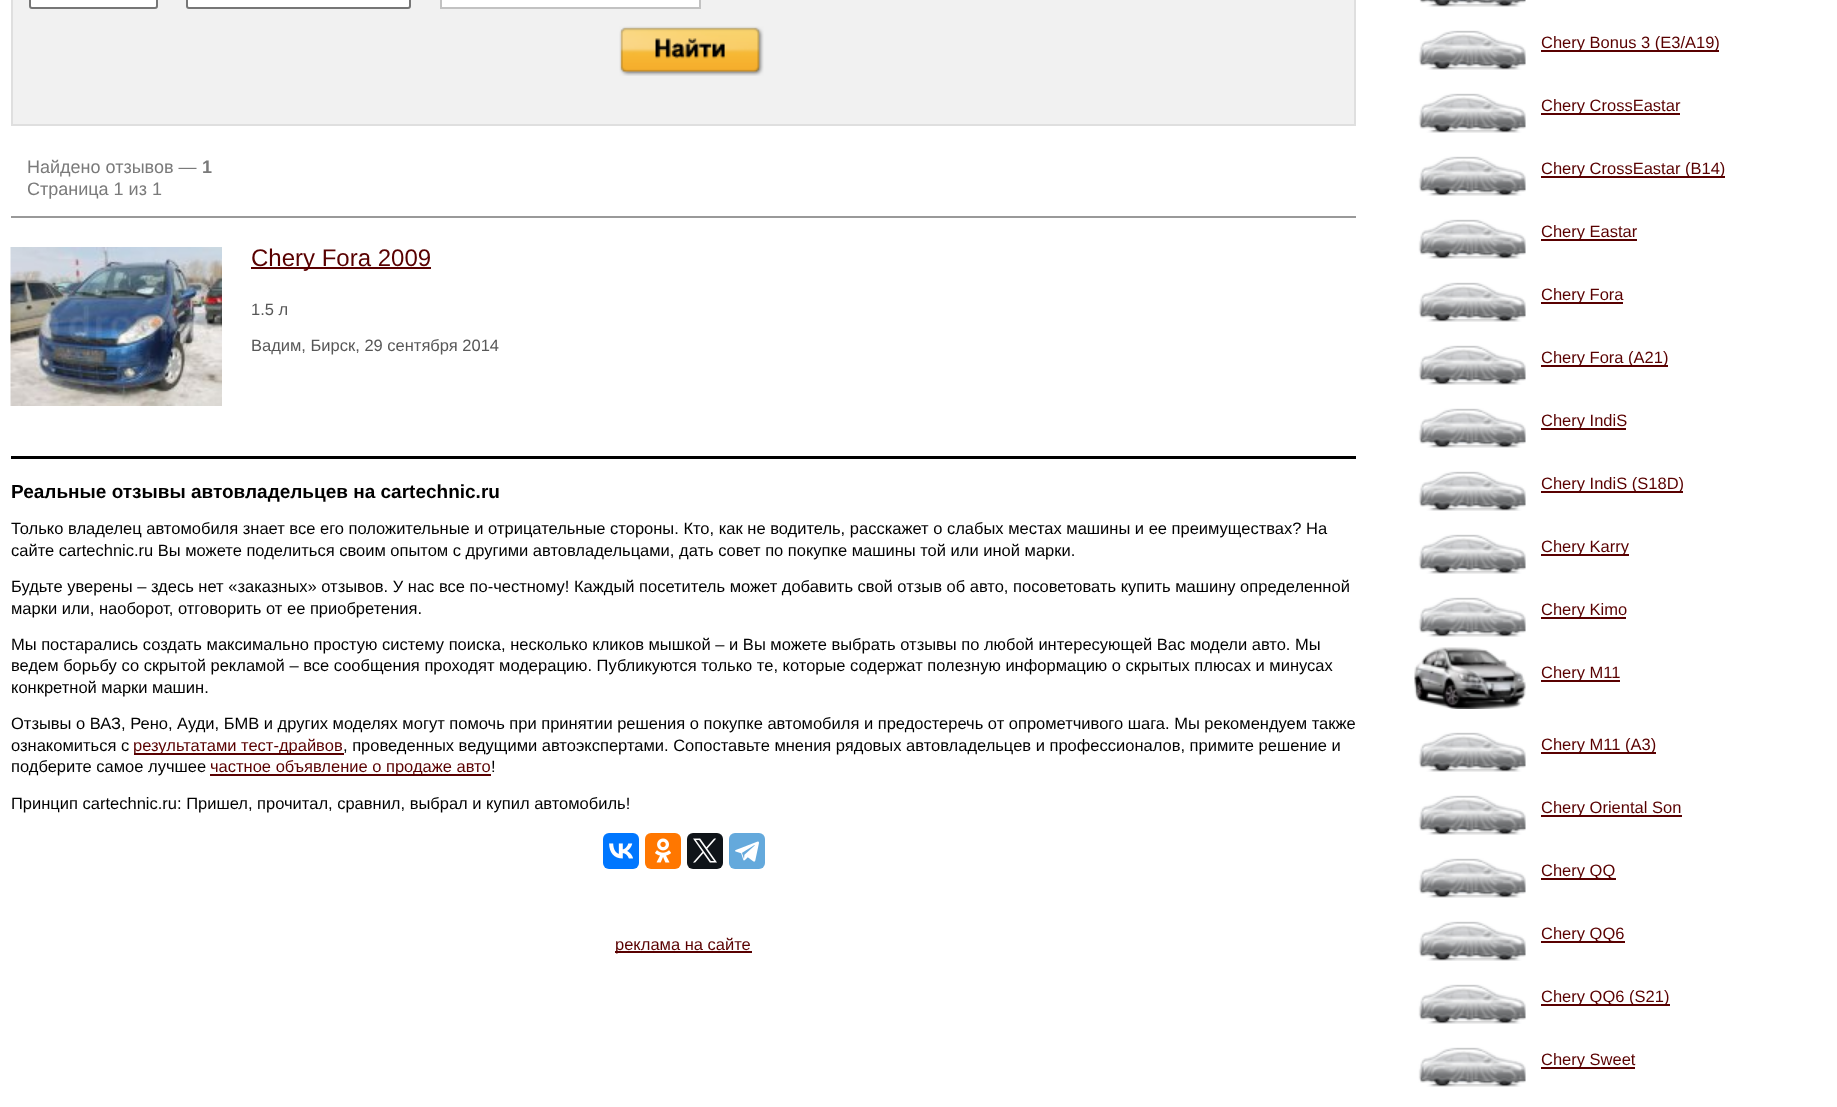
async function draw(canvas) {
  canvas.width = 1837;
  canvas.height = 1107;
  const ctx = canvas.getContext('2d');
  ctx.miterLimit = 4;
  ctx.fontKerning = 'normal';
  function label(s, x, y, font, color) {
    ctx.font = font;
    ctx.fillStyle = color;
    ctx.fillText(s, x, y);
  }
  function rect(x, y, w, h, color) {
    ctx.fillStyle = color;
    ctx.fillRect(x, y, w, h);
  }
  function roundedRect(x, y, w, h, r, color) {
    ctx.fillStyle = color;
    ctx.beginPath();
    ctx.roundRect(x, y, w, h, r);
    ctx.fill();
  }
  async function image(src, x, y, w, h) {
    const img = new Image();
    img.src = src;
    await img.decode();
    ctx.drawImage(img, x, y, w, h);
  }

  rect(0, 0, 1837, 1107, '#fff');
  ctx.fillStyle = '#f1f1f1';
  ctx.beginPath();
  ctx.rect(12, -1, 1343, 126);
  ctx.fill();
  ctx.strokeStyle = '#dfdfdf';
  ctx.lineWidth = 2;
  ctx.stroke();
  ctx.fillStyle = '#fff';
  ctx.beginPath();
  ctx.roundRect(30, -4, 127, 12, 2);
  ctx.fill();
  ctx.strokeStyle = '#767676';
  ctx.stroke();
  ctx.beginPath();
  ctx.roundRect(187, -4, 223, 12, 2);
  ctx.fill();
  ctx.stroke();
  ctx.beginPath();
  ctx.rect(441, -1, 259, 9);
  ctx.fill();
  ctx.strokeStyle = '#c2c2c2';
  ctx.stroke();
  await image('assets/img1.png', 619, 26, 145, 50);
  rect(11, 216, 1345, 2, '#999');
  label('Найдено отзывов —', 27, 173, '18px Liberation Sans', '#7a7a7a');
  label('1', 202, 173, 'bold 18px Liberation Sans', '#7a7a7a');
  label('Страница 1 из 1', 27, 195, '18px Liberation Sans', '#7a7a7a');
  rect(11, 456, 1345, 3, '#000');
  await image('assets/img2.png', 10, 247, 212, 159);
  rect(251, 267, 180, 2, '#590000');
  label('Chery Fora 2009', 251, 266, '24px Liberation Sans', '#590000');
  label('1.5 л', 251, 315, '16.5px Liberation Sans', '#575757');
  label('Вадим, Бирск, 29 сентября 2014', 251, 351, '16.5px Liberation Sans', '#575757');
  label('Реальные отзывы автовладельцев на cartechnic.ru', 11, 498, 'bold 19px Liberation Sans', '#000');
  label('Только владелец автомобиля знает все его положительные и отрицательные стороны. Кто, как не водитель, расскажет о слабых местах машины и ее преимуществах? На', 11, 534, '16.5px Liberation Sans', '#000');
  label('сайте cartechnic.ru Вы можете поделиться своим опытом с другими автовладельцами, дать совет по покупке машины той или иной марки.', 11, 556, '16.5px Liberation Sans', '#000');
  label('Будьте уверены – здесь нет «заказных» отзывов. У нас все по-честному! Каждый посетитель может добавить свой отзыв об авто, посоветовать купить машину определенной', 11, 592, '16.5px Liberation Sans', '#000');
  label('марки или, наоборот, отговорить от ее приобретения.', 11, 614, '16.5px Liberation Sans', '#000');
  label('Мы постарались создать максимально простую систему поиска, несколько кликов мышкой – и Вы можете выбрать отзывы по любой интересующей Вас модели авто. Мы', 11, 650, '16.5px Liberation Sans', '#000');
  label('ведем борьбу со скрытой рекламой – все сообщения проходят модерацию. Публикуются только те, которые содержат полезную информацию о скрытых плюсах и минусах', 11, 671, '16.5px Liberation Sans', '#000');
  label('конкретной марки машин.', 11, 693, '16.5px Liberation Sans', '#000');
  label('Отзывы о ВАЗ, Рено, Ауди, БМВ и других моделях могут помочь при принятии решения о покупке автомобиля и предостеречь от опрометчивого шага. Мы рекомендуем также', 11, 729, '16.5px Liberation Sans', '#000');
  label('ознакомиться с', 11, 751, '16.5px Liberation Sans', '#000');
  rect(134, 753, 210, 2, '#590000');
  label('результатами тест-драйвов', 133, 751, '16.5px Liberation Sans', '#590000');
  label(', проведенных ведущими автоэкспертами. Сопоставьте мнения рядовых автовладельцев и профессионалов, примите решение и', 343, 751, '16.5px Liberation Sans', '#000');
  label('подберите самое лучшее', 11, 772, '16.5px Liberation Sans', '#000');
  rect(210, 774, 281, 2, '#590000');
  label('частное объявление о продаже авто', 210, 772, '16.5px Liberation Sans', '#590000');
  label('!', 491, 772, '16.5px Liberation Sans', '#000');
  label('Принцип cartechnic.ru: Пришел, прочитал, сравнил, выбрал и купил автомобиль!', 11, 809, '16.5px Liberation Sans', '#000');
  roundedRect(603, 833, 36, 36, 6, '#07f');
  await image('assets/img3.png', 609, 843, 24, 16);
  roundedRect(645, 833, 36, 36, 6, '#f70');
  await image('assets/img4.png', 655, 838, 16, 25);
  roundedRect(687, 833, 36, 36, 6, '#0f1419');
  await image('assets/img5.png', 693, 838, 24, 25);
  roundedRect(729, 833, 36, 36, 6, '#64a9dc');
  await image('assets/img6.png', 735, 841, 24, 21);
  rect(615, 951, 137, 2, '#590000');
  label('реклама на сайте', 615, 950, '16.5px Liberation Sans', '#590000');
  await image('assets/img7.png', 1419, 0, 107, 7);
  await image('assets/img8.png', 1418, 30, 108, 40);
  rect(1541, 50, 178, 2, '#590000');
  label('Chery Bonus 3 (E3/A19)', 1541, 48, '16.5px Liberation Sans', '#590000');
  await image('assets/img8.png', 1418, 93, 108, 40);
  rect(1541, 113, 139, 2, '#590000');
  label('Chery CrossEastar', 1541, 111, '16.5px Liberation Sans', '#590000');
  await image('assets/img8.png', 1418, 156, 108, 40);
  rect(1541, 176, 184, 2, '#590000');
  label('Chery CrossEastar (B14)', 1541, 174, '16.5px Liberation Sans', '#590000');
  await image('assets/img8.png', 1418, 219, 108, 40);
  rect(1541, 239, 96, 2, '#590000');
  label('Chery Eastar', 1541, 237, '16.5px Liberation Sans', '#590000');
  await image('assets/img8.png', 1418, 282, 108, 40);
  rect(1541, 302, 82, 2, '#590000');
  label('Chery Fora', 1541, 300, '16.5px Liberation Sans', '#590000');
  await image('assets/img8.png', 1418, 345, 108, 40);
  rect(1541, 365, 127, 2, '#590000');
  label('Chery Fora (A21)', 1541, 363, '16.5px Liberation Sans', '#590000');
  await image('assets/img8.png', 1418, 408, 108, 40);
  rect(1541, 428, 85, 2, '#590000');
  label('Chery IndiS', 1541, 426, '16.5px Liberation Sans', '#590000');
  await image('assets/img8.png', 1418, 471, 108, 40);
  rect(1541, 491, 142, 2, '#590000');
  label('Chery IndiS (S18D)', 1541, 489, '16.5px Liberation Sans', '#590000');
  await image('assets/img8.png', 1418, 534, 108, 40);
  rect(1541, 554, 88, 2, '#590000');
  label('Chery Karry', 1541, 552, '16.5px Liberation Sans', '#590000');
  await image('assets/img8.png', 1418, 597, 108, 40);
  rect(1541, 617, 85, 2, '#590000');
  label('Chery Kimo', 1541, 615, '16.5px Liberation Sans', '#590000');
  await image('assets/img9.png', 1414, 647, 112, 62);
  rect(1541, 680, 79, 2, '#590000');
  label('Chery M11', 1541, 678, '16.5px Liberation Sans', '#590000');
  await image('assets/img8.png', 1418, 732, 108, 40);
  rect(1541, 752, 115, 2, '#590000');
  label('Chery M11 (A3)', 1541, 750, '16.5px Liberation Sans', '#590000');
  await image('assets/img8.png', 1418, 795, 108, 40);
  rect(1541, 815, 141, 2, '#590000');
  label('Chery Oriental Son', 1541, 813, '16.5px Liberation Sans', '#590000');
  await image('assets/img8.png', 1418, 858, 108, 40);
  rect(1541, 878, 75, 2, '#590000');
  label('Chery QQ', 1541, 876, '16.5px Liberation Sans', '#590000');
  await image('assets/img8.png', 1418, 921, 108, 40);
  rect(1541, 941, 84, 2, '#590000');
  label('Chery QQ6', 1541, 939, '16.5px Liberation Sans', '#590000');
  await image('assets/img8.png', 1418, 984, 108, 40);
  rect(1541, 1004, 129, 2, '#590000');
  label('Chery QQ6 (S21)', 1541, 1002, '16.5px Liberation Sans', '#590000');
  await image('assets/img8.png', 1418, 1047, 108, 40);
  rect(1541, 1067, 94, 2, '#590000');
  label('Chery Sweet', 1541, 1065, '16.5px Liberation Sans', '#590000');
}

draw(document.querySelector('canvas'));
